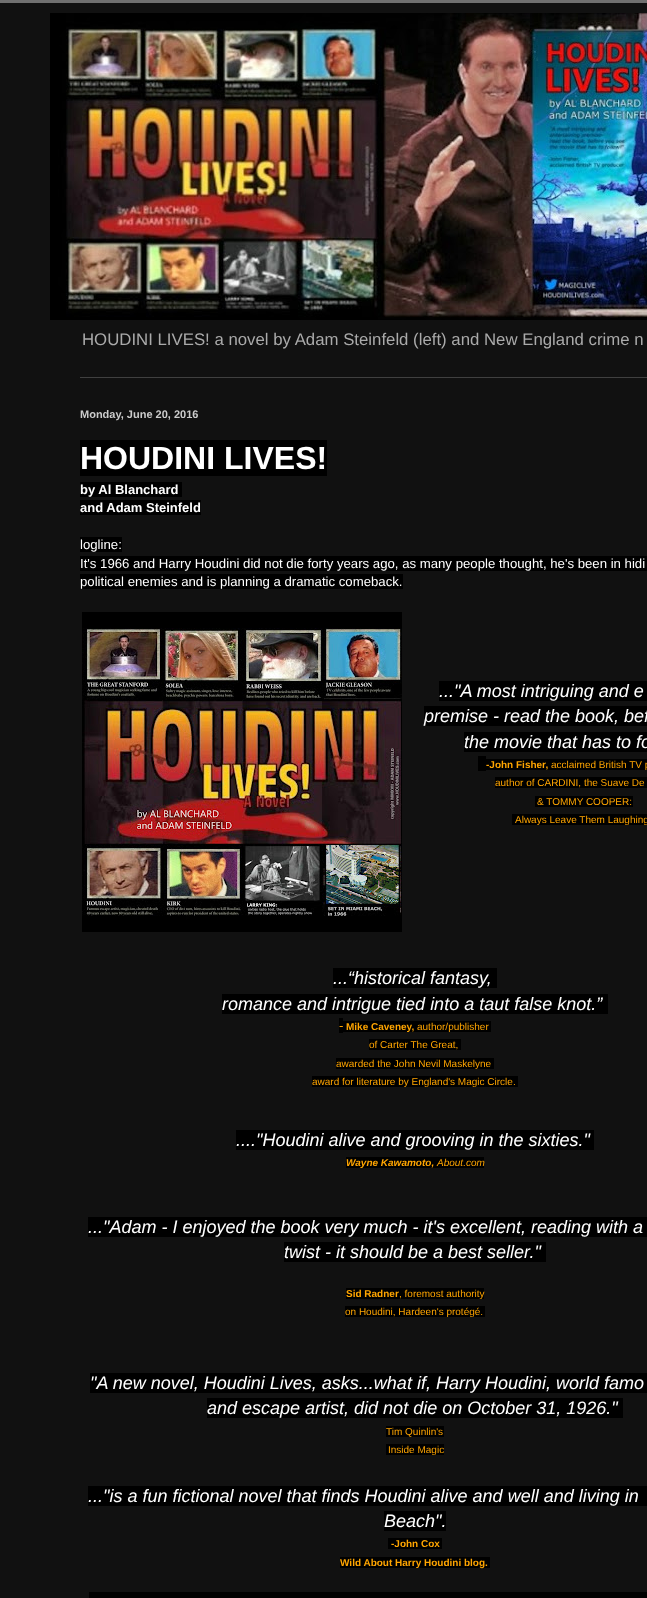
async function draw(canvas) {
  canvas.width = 647;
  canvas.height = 1598;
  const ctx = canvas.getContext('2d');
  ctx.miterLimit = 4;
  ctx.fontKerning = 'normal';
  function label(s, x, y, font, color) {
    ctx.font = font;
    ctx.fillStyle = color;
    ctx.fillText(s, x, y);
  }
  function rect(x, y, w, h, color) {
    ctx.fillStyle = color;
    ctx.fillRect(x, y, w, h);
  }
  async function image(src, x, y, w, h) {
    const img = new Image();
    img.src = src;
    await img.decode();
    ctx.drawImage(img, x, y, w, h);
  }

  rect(0, 0, 647, 1598, '#111');
  rect(0, 0, 647, 3, '#707070');
  await image('assets/img1.png', 50, 13, 597, 307);
  label('HOUDINI LIVES! a novel by Adam Steinfeld (left) and New England crime n', 82, 345, '16.8px Liberation Sans', '#aaa');
  rect(80, 377, 567, 1, '#404040');
  label('Monday, June 20, 2016', 80, 418, 'bold 11px Liberation Sans', '#ccc');
  rect(80, 440, 247, 36, '#000');
  label('HOUDINI LIVES!', 80, 469, 'bold 32px Liberation Sans', '#fff');
  rect(80, 482, 102, 15, '#000');
  label('by Al Blanchard', 80, 494, 'bold 13px Liberation Sans', '#fff');
  rect(80, 500, 121, 15, '#000');
  label('and Adam Steinfeld', 80, 512, 'bold 13px Liberation Sans', '#fff');
  rect(80, 537, 42, 15, '#000');
  label('logline:', 80, 549, '13.2px Liberation Sans', '#fff');
  rect(80, 556, 567, 15, '#000');
  label('It\'s 1966 and Harry Houdini did not die forty years ago, as many people thought, he\'s been in hidi', 80, 568, '13.2px Liberation Sans', '#fff');
  rect(80, 574, 323, 15, '#000');
  label('political enemies and is planning a dramatic comeback.', 80, 586, '13.2px Liberation Sans', '#fff');
  await image('assets/img2.png', 82, 612, 320, 320);
  rect(439, 681, 208, 20, '#000');
  label('..."A most intriguing and e', 439, 697, 'italic 18px Liberation Sans', '#fff');
  rect(424, 706, 223, 20, '#000');
  label('premise - read the book, bef', 424, 722, 'italic 18px Liberation Sans', '#fff');
  rect(464, 732, 183, 20, '#000');
  label('the movie that has to fo', 464, 748, 'italic 18px Liberation Sans', '#fff');
  rect(486, 759, 161, 11, '#000');
  label('-John Fisher,', 486, 768, 'bold 10px Liberation Sans', '#ffa500');
  rect(478, 756, 8, 15, '#000');
  label('acclaimed British TV p', 551, 768, '10px Liberation Sans', '#ffa500');
  rect(495, 777, 152, 11, '#000');
  label('author of CARDINI, the Suave De', 495, 786, '10px Liberation Sans', '#ffa500');
  rect(535, 796, 98, 11, '#000');
  label('& TOMMY COOPER:', 537, 805, '10px Liberation Sans', '#ffa500');
  rect(512, 814, 135, 11, '#000');
  label('Always Leave Them Laughing', 515, 823, '10px Liberation Sans', '#ffa500');
  rect(333, 968, 164, 20, '#000');
  label('...“historical fantasy,', 333, 984, 'italic 18px Liberation Sans', '#fff');
  rect(222, 994, 386, 20, '#000');
  label('romance and intrigue tied into a taut false knot.”', 222, 1010, 'italic 18px Liberation Sans', '#fff');
  rect(339, 1018, 4, 15, '#000');
  label('-', 339, 1030, '13.2px Liberation Sans', '#ffa500');
  rect(343, 1021, 148, 11, '#000');
  label('Mike Caveney,', 346, 1030, 'bold 10px Liberation Sans', '#ffa500');
  label('author/publisher', 417, 1030, '10px Liberation Sans', '#ffa500');
  rect(369, 1039, 92, 11, '#000');
  label('of Carter The Great,', 369, 1048, '10px Liberation Sans', '#ffa500');
  rect(336, 1058, 158, 11, '#000');
  label('awarded the John Nevil Maskelyne', 336, 1067, '10px Liberation Sans', '#ffa500');
  rect(312, 1076, 206, 11, '#000');
  label('award for literature by England\'s Magic Circle.', 312, 1085, '10px Liberation Sans', '#ffa500');
  rect(236, 1130, 358, 20, '#000');
  label('...."Houdini alive and grooving in the sixties."', 236, 1146, 'italic 18px Liberation Sans', '#fff');
  rect(346, 1157, 138, 11, '#000');
  label('Wayne Kawamoto,', 346, 1166, 'italic bold 10px Liberation Sans', '#ffa500');
  label('About.com', 437, 1166, 'italic 10px Liberation Sans', '#ffa500');
  rect(88, 1217, 559, 20, '#000');
  label('..."Adam - I enjoyed the book very much - it\'s excellent, reading with a', 88, 1233, 'italic 18px Liberation Sans', '#fff');
  rect(284, 1242, 262, 20, '#000');
  label('twist - it should be a best seller."', 284, 1258, 'italic 18px Liberation Sans', '#fff');
  rect(346, 1288, 138, 11, '#000');
  label('Sid Radner', 346, 1297, 'bold 10px Liberation Sans', '#ffa500');
  label(', foremost authority', 399, 1297, '10px Liberation Sans', '#ffa500');
  rect(345, 1306, 140, 11, '#000');
  label('on Houdini, Hardeen\'s protégé.', 345, 1315, '10px Liberation Sans', '#ffa500');
  rect(90, 1373, 557, 20, '#000');
  label('"A new novel, Houdini Lives, asks...what if, Harry Houdini, world famo', 90, 1389, 'italic 18px Liberation Sans', '#fff');
  rect(207, 1398, 416, 20, '#000');
  label('and escape artist, did not die on October 31, 1926."', 207, 1414, 'italic 18px Liberation Sans', '#fff');
  rect(386, 1426, 58, 11, '#000');
  label('Tim Quinlin\'s', 386, 1435, '10px Liberation Sans', '#ffa500');
  rect(386, 1444, 58, 11, '#000');
  label('Inside Magic', 388, 1453, '10px Liberation Sans', '#ffa500');
  rect(88, 1486, 559, 20, '#000');
  label('..."is a fun fictional novel that finds Houdini alive and well and living in', 88, 1502, 'italic 18px Liberation Sans', '#fff');
  rect(384, 1511, 62, 20, '#000');
  label('Beach".', 384, 1527, 'italic 18px Liberation Sans', '#fff');
  rect(388, 1538, 54, 11, '#000');
  label('-John Cox', 391, 1547, 'bold 10px Liberation Sans', '#ffa500');
  rect(340, 1557, 150, 11, '#000');
  label('Wild About Harry Houdini blog.', 340, 1566, 'bold 10px Liberation Sans', '#ffa500');
  rect(89, 1592, 558, 6, '#000');
}

draw(document.querySelector('canvas'));
